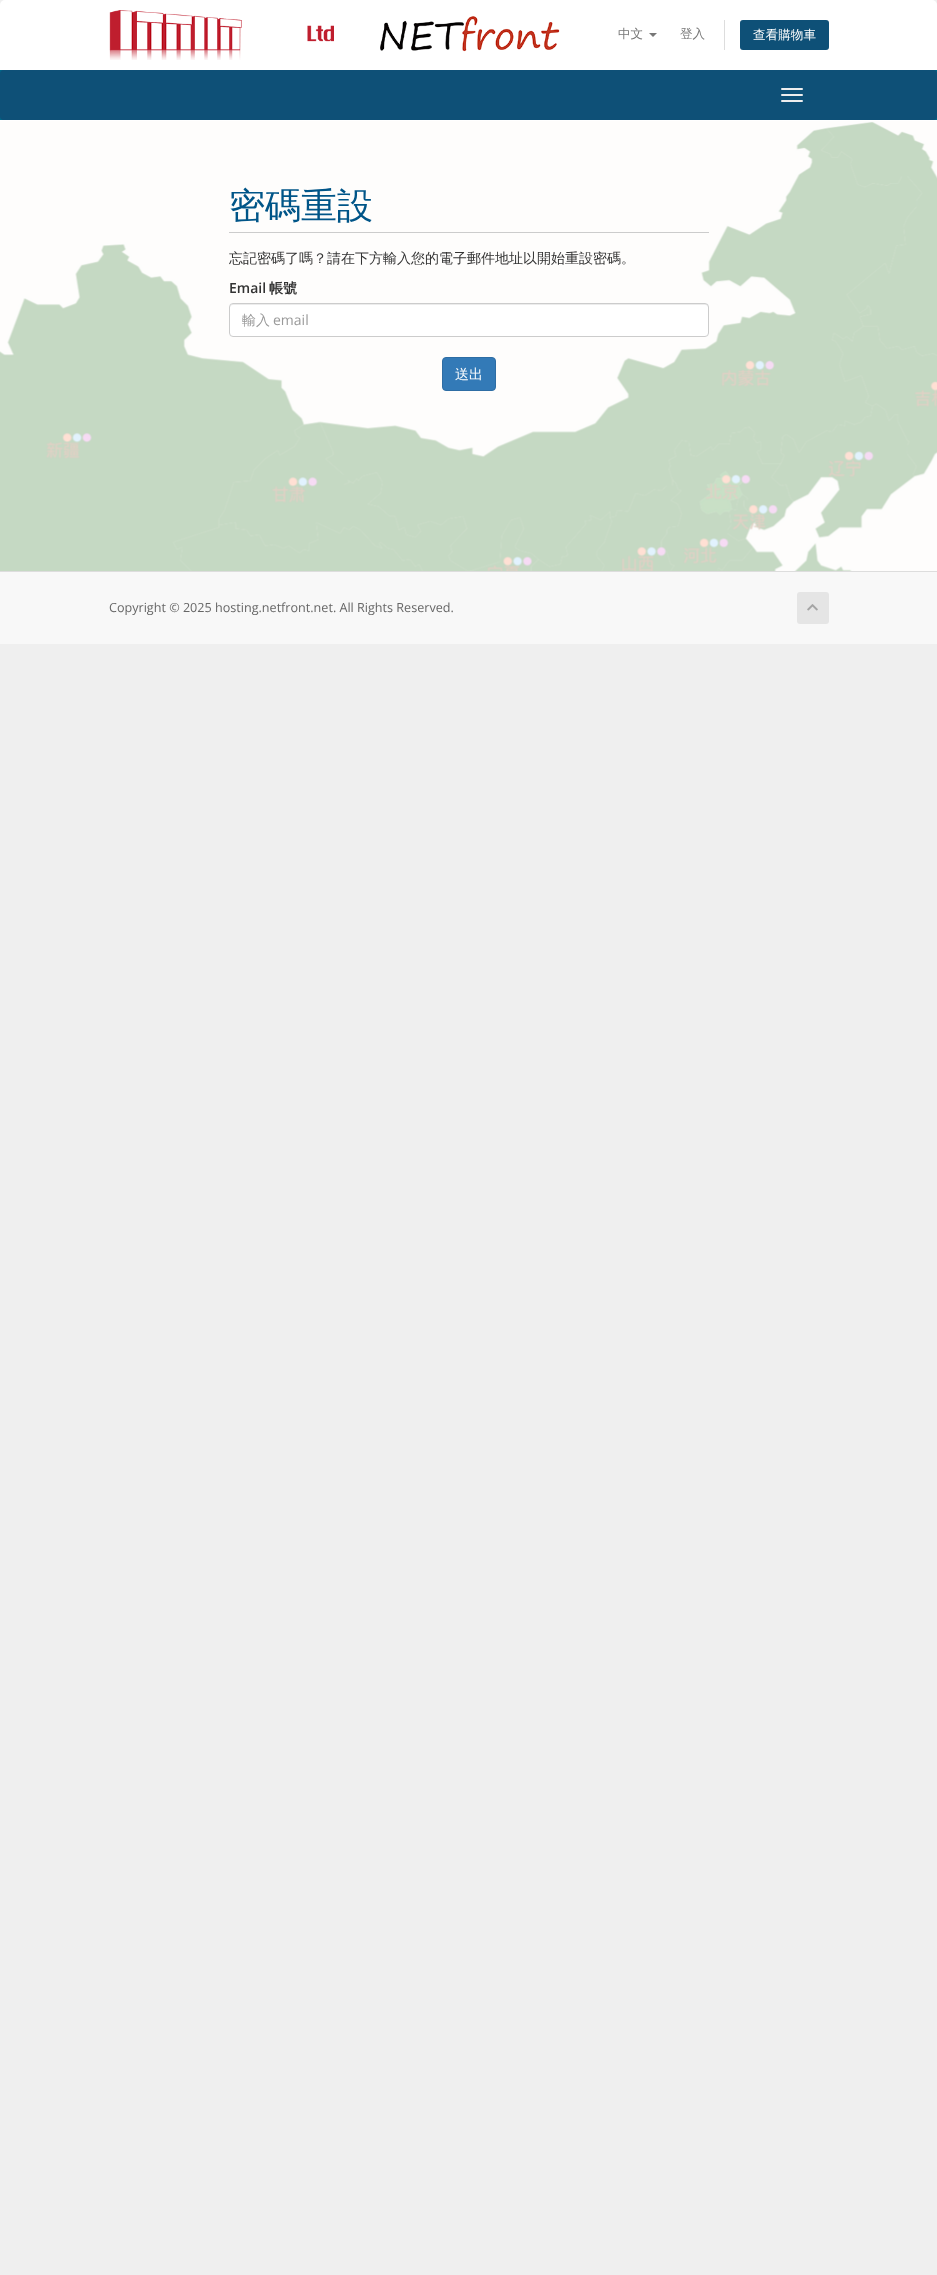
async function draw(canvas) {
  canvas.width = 937;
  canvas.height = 2275;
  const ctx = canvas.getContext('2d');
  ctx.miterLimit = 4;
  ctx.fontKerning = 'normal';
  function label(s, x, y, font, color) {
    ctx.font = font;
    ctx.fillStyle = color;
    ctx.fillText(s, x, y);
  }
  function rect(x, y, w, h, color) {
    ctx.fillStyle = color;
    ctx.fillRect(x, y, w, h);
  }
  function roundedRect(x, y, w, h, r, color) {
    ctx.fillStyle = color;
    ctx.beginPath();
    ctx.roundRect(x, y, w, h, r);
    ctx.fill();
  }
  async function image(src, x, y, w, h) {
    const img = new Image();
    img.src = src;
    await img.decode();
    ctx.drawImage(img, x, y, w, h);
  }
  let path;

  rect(0, 0, 937, 2275, '#efefef');
  ctx.fillStyle = '#fff';
  ctx.beginPath();
  ctx.roundRect(0, 0, 937, 70, [5, 5, 0, 0]);
  ctx.fill();
  await image('assets/img1.png', 109, 10, 451, 50);
  label('中文', 618, 38, '500 12.6px WenQuanYi Zen Hei', '#777');
  path = new Path2D('M649 33H657L653 37Z');
  ctx.fill(path);
  label('登入', 680, 38, '500 12.6px WenQuanYi Zen Hei', '#777');
  rect(724, 20, 1, 30, '#ddd');
  roundedRect(740, 20, 89, 30, 3, '#0e5077');
  label('查看購物車', 753, 39, '500 12.6px WenQuanYi Zen Hei', '#fff');
  rect(0, 70, 937, 50, '#006687');
  roundedRect(0, 70, 937, 50, 4, '#0e5077');
  roundedRect(781, 88, 22, 2, 1, '#eee');
  roundedRect(781, 94, 22, 2, 1, '#eee');
  roundedRect(781, 100, 22, 2, 1, '#eee');
  rect(0, 120, 937, 1, '#fff');
  await image('assets/img2.png', 0, 121, 937, 450);
  rect(229, 232, 480, 1, '#ccc');
  label('密碼重設', 229, 218, '500 36px WenQuanYi Zen Hei', '#058');
  label('忘記密碼了嗎？請在下方輸入您的電子郵件地址以開始重設密碼。', 229, 263, '500 14px WenQuanYi Zen Hei', '#333');
  label('Email', 229, 293, '600 14px Open Sans', '#333');
  label('帳號', 269, 293, 'bold 14px WenQuanYi Zen Hei', '#333');
  roundedRect(229, 303, 480, 34, 4, '#fff');
  ctx.fillStyle = '#ececec';
  path = new Path2D('M233 305H705C707 305 708 306 708 308C708 306 708 304 706 304H232L230 306V308C230 306 231 305 233 305Z');
  ctx.fill(path);
  ctx.beginPath();
  ctx.roundRect(229.5, 303.5, 479, 33, 3.5);
  ctx.strokeStyle = '#ccc';
  ctx.stroke();
  ctx.save();
  ctx.beginPath();
  ctx.rect(242, 310, 454, 20);
  ctx.clip();
  label('輸入', 242, 325, '500 14px WenQuanYi Zen Hei', '#999');
  ctx.restore();
  label('email', 273, 325, '14px Open Sans', '#999');
  ctx.fillStyle = '#337ab7';
  ctx.beginPath();
  ctx.roundRect(442.5, 357.5, 53, 33, 3.5);
  ctx.fill();
  ctx.strokeStyle = '#2e6da4';
  ctx.stroke();
  label('送出', 455, 379, '500 14px WenQuanYi Zen Hei', '#fff');
  rect(0, 572, 937, 72, '#f8f8f8');
  rect(0, 571, 937, 1, '#ddd');
  label('Copyright © 2025 hosting.netfront.net. All Rights Reserved.', 109, 612, '12.6px Open Sans', '#666');
  roundedRect(797, 592, 32, 32, 3, '#e5e5e5');
  await image('assets/img3.png', 807, 604, 11, 7);
}

draw(document.querySelector('canvas'));
